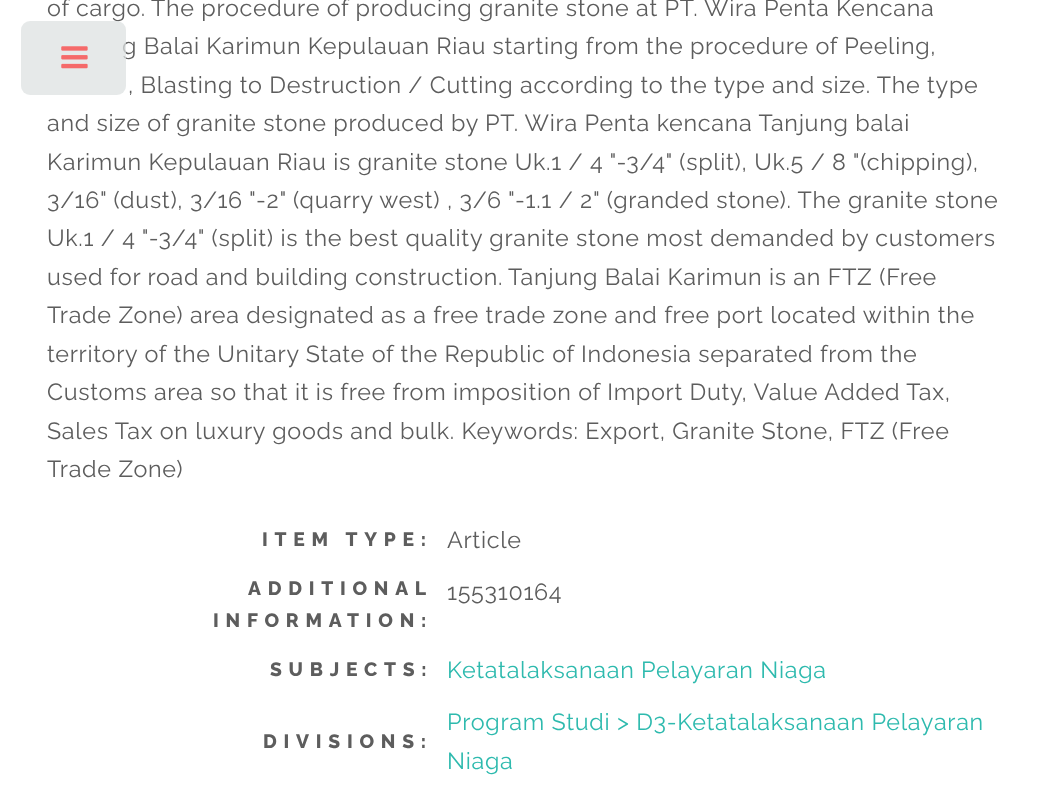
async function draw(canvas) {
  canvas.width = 1051;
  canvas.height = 796;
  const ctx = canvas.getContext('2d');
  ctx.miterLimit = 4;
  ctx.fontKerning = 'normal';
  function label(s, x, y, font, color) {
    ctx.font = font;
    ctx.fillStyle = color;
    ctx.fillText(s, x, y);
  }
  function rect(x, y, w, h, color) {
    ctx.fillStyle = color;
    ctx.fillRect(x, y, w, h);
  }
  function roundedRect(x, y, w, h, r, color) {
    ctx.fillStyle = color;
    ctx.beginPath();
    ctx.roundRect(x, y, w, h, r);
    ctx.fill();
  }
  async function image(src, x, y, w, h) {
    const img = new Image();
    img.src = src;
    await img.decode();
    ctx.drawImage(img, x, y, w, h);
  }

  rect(0, 0, 1051, 796, '#fff');
  ctx.letterSpacing = '0.7px';
  label('of cargo.', 47, 16, '23.35px Raleway', '#5d5d5d');
  label('The procedure of producing granite stone at PT. Wira Penta Kencana', 151, 16, '23.35px Raleway', '#5d5d5d');
  label('g Balai Karimun Kepulauan Riau starting from the procedure of Peeling,', 122, 54, '23.35px Raleway', '#5d5d5d');
  label(', Blasting to Destruction / Cutting according to the type and size. The type', 128, 93, '23.35px Raleway', '#5d5d5d');
  label('and size of granite stone produced by PT. Wira Penta kencana Tanjung balai', 47, 131, '23.35px Raleway', '#5d5d5d');
  label('Karimun Kepulauan Riau is granite stone Uk.1 / 4 "-3/4" (split), Uk.5 / 8 "(chipping),', 47, 170, '23.35px Raleway', '#5d5d5d');
  label('3/16" (dust), 3/16 "-2" (quarry west) , 3/6 "-1.1 / 2" (granded stone). The granite stone', 47, 208, '23.35px Raleway', '#5d5d5d');
  label('Uk.1 / 4 "-3/4" (split) is the best quality granite stone most demanded by customers', 47, 246, '23.35px Raleway', '#5d5d5d');
  label('used for road and building construction.', 47, 285, '23.35px Raleway', '#5d5d5d');
  label('Tanjung Balai Karimun is an FTZ (Free', 508, 285, '23.35px Raleway', '#5d5d5d');
  label('Trade Zone) area designated as a free trade zone and free port located within the', 47, 323, '23.35px Raleway', '#5d5d5d');
  label('territory of the Unitary State of the Republic of Indonesia separated from the', 47, 362, '23.35px Raleway', '#5d5d5d');
  label('Customs area so that it is free from imposition of Import Duty, Value Added Tax,', 47, 400, '23.35px Raleway', '#5d5d5d');
  label('Sales Tax on luxury goods and bulk. Keywords: Export, Granite Stone, FTZ (Free', 47, 439, '23.35px Raleway', '#5d5d5d');
  label('Trade Zone)', 47, 477, '23.35px Raleway', '#5d5d5d');
  ctx.letterSpacing = '6.75px';
  label('ITEM TYPE:', 262, 546, '800 19.25px Raleway', '#5d5d5d');
  ctx.letterSpacing = '0.7px';
  label('Article', 447, 548, '23.35px Raleway', '#5d5d5d');
  ctx.letterSpacing = '6.75px';
  label('ADDITIONAL', 248, 595, '800 19.25px Raleway', '#5d5d5d');
  label('INFORMATION:', 213, 627, '800 19.25px Raleway', '#5d5d5d');
  ctx.letterSpacing = '0.7px';
  label('155310164', 447, 600, '23.35px Raleway', '#5d5d5d');
  ctx.letterSpacing = '6.75px';
  label('SUBJECTS:', 270, 676, '800 19.25px Raleway', '#5d5d5d');
  ctx.letterSpacing = '0.7px';
  label('Ketatalaksanaan Pelayaran Niaga', 447, 678, '23.35px Raleway', '#2ebaae');
  ctx.letterSpacing = '6.75px';
  label('DIVISIONS:', 263, 748, '800 19.25px Raleway', '#5d5d5d');
  ctx.letterSpacing = '0.7px';
  label('Program Studi > D3-Ketatalaksanaan Pelayaran', 447, 730, '23.35px Raleway', '#2ebaae');
  label('Niaga', 447, 769, '23.35px Raleway', '#2ebaae');
  roundedRect(21, 21, 105, 74, 9, '#dee1e2bf');
  await image('assets/img1.png', 61, 46, 27, 23);
}

draw(document.querySelector('canvas'));
